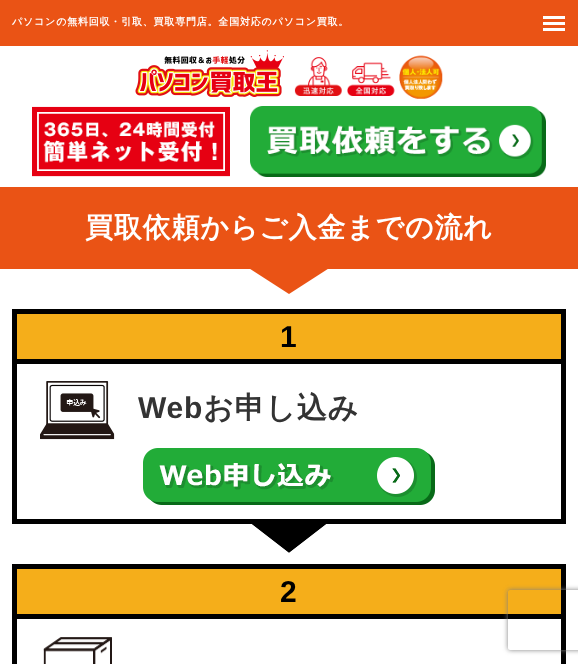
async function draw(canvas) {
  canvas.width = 578;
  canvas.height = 664;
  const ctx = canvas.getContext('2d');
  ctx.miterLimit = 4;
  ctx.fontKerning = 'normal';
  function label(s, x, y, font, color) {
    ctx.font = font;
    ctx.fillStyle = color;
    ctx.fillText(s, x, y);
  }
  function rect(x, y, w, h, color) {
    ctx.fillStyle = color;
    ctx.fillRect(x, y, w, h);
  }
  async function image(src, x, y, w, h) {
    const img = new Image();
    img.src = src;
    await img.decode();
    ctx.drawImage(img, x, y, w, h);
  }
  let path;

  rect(0, 0, 578, 664, '#fff');
  rect(0, 0, 578, 46, '#ea5315');
  ctx.letterSpacing = '0.8px';
  label('パソコンの無料回収・引取、買取専門店。全国対応のパソコン買取。', 12, 25, 'bold 10px WenQuanYi Zen Hei', '#fff');
  await image('assets/img1.png', 135, 50, 149, 47);
  await image('assets/img2.png', 294, 55, 149, 44);
  await image('assets/img3.png', 32, 106, 198, 71);
  await image('assets/img4.png', 250, 106, 296, 71);
  rect(0, 187, 578, 82, '#ea5315');
  label('買取依頼からご入金までの流れ', 85, 237, 'bold 28px WenQuanYi Zen Hei', '#fff');
  await image('assets/img5.png', 250, 269, 78, 25);
  ctx.strokeStyle = '#000';
  ctx.lineWidth = 5;
  ctx.strokeRect(14.5, 311.5, 549, 210);
  rect(17, 314, 544, 45, '#f5ae1a');
  rect(17, 359, 544, 5, '#000');
  label('1', 280, 347, 'bold 30px Liberation Sans', '#000');
  await image('assets/img6.png', 40, 381, 75, 59);
  label('Web', 138, 418, 'bold 30px Liberation Sans', '#333');
  label('お申し込み', 203, 418, 'bold 30px WenQuanYi Zen Hei', '#333');
  await image('assets/img7.png', 143, 448, 292, 57);
  await image('assets/img8.png', 252, 524, 74, 29);
  ctx.strokeRect(14.5, 566.5, 549, 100);
  rect(17, 569, 544, 45, '#f5ae1a');
  rect(17, 614, 544, 5, '#000');
  label('2', 280, 602, 'bold 30px Liberation Sans', '#000');
  await image('assets/img9.png', 43, 637, 69, 27);
  rect(543, 16, 22, 3, '#fff');
  rect(543, 22, 22, 3, '#fff');
  rect(543, 28, 22, 3, '#fff');
  ctx.save();
  path = new Path2D('M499 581H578V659H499ZM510 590H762C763 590 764 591 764 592V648C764 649 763 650 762 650H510C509 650 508 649 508 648V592C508 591 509 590 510 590Z');
  ctx.clip(path, 'evenodd');
  ctx.fillStyle = '#808080';
  ctx.filter = 'blur(2.5px)';
  ctx.beginPath();
  ctx.roundRect(508, 590, 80, 60, 2);
  ctx.fill();
  ctx.filter = 'none';
  ctx.restore();
}

draw(document.querySelector('canvas'));
